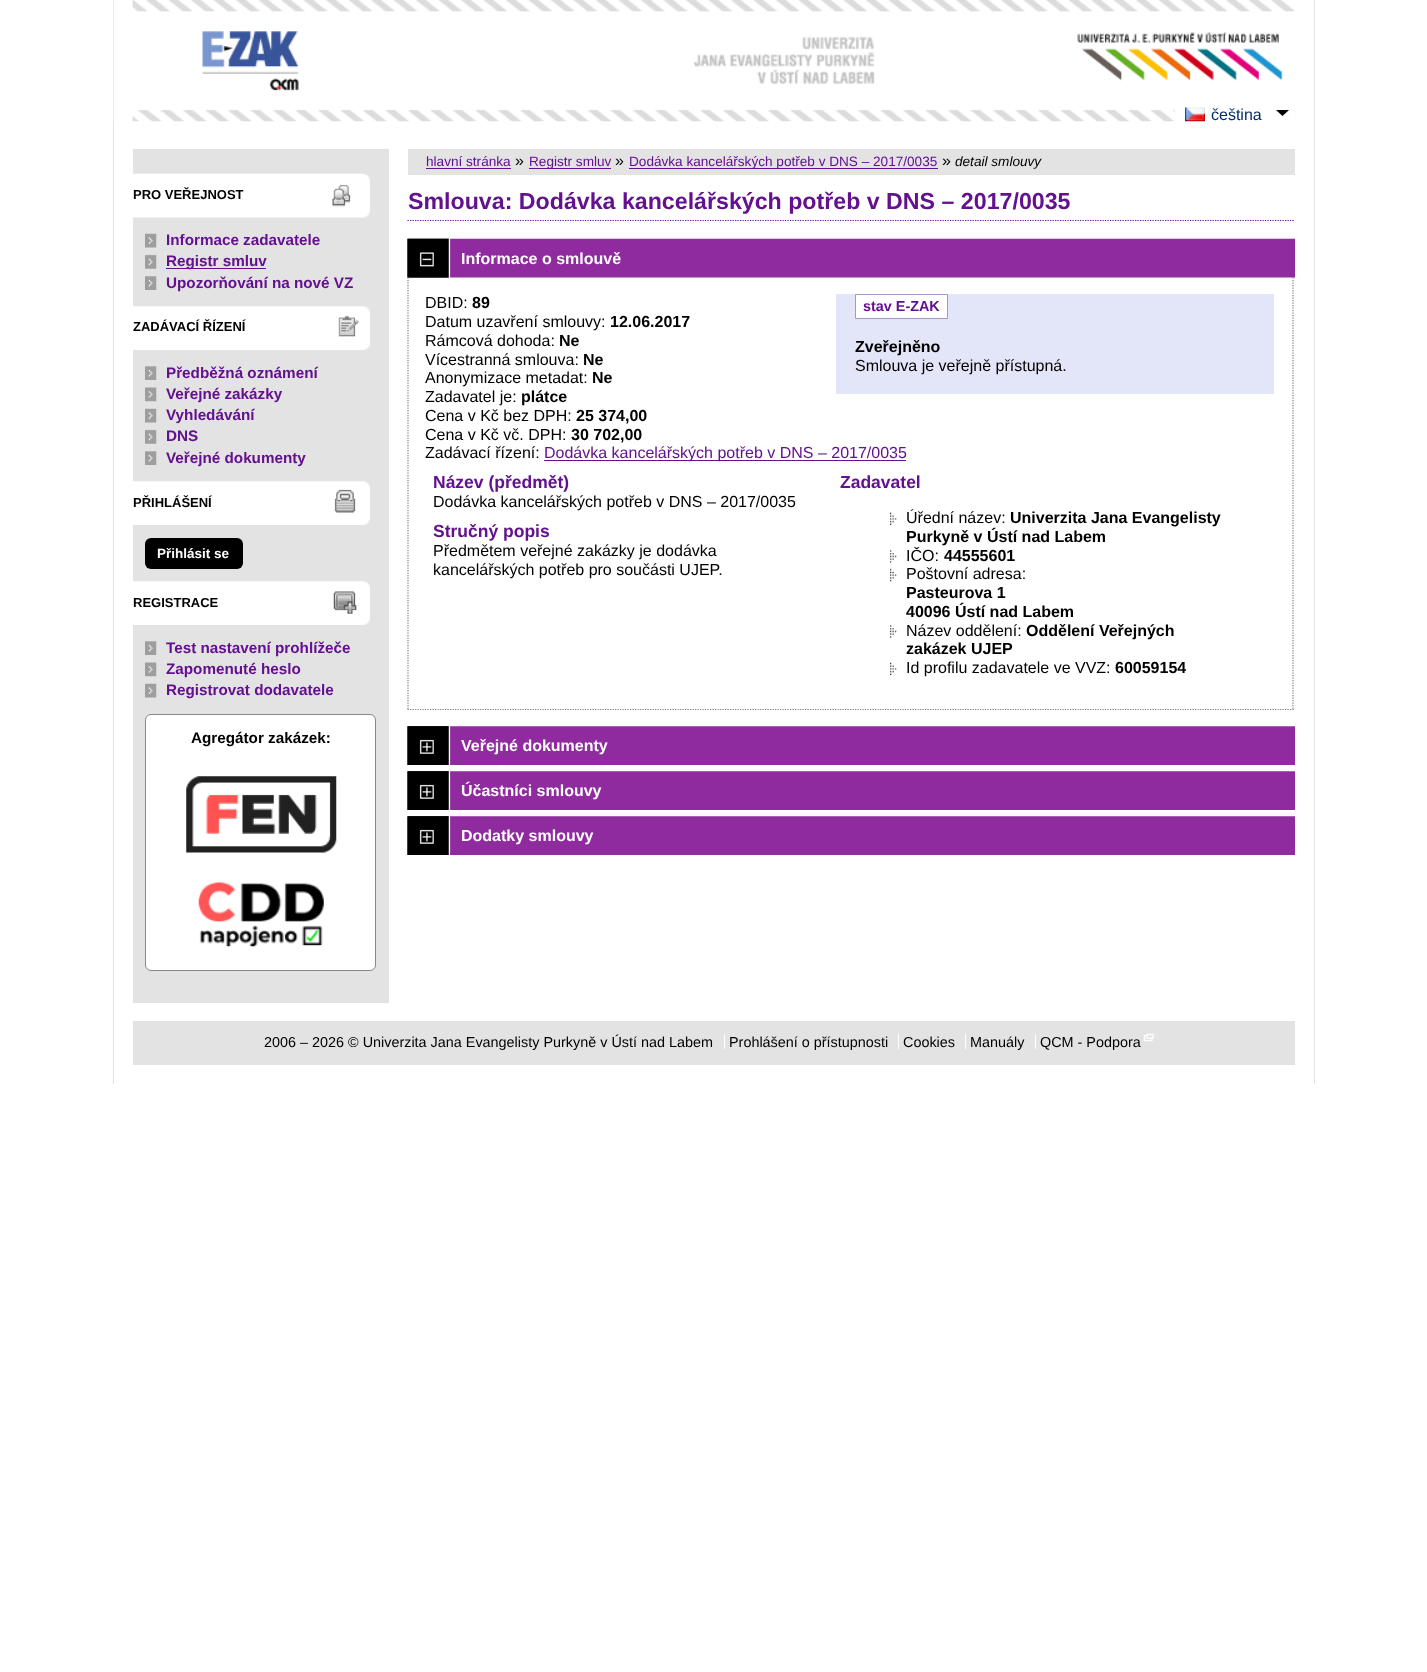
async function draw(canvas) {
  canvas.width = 1427;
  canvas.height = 1672;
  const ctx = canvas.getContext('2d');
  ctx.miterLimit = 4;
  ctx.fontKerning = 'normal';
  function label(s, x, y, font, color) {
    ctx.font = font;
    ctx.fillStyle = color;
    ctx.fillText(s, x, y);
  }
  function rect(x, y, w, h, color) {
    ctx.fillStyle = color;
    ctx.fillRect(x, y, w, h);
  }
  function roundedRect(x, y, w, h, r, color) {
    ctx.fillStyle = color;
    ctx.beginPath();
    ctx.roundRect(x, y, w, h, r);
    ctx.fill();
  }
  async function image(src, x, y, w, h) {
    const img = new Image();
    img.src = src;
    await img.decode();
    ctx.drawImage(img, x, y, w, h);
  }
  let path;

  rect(0, 0, 1427, 1672, '#fff');
  rect(1314, 0, 1, 1084, '#e3e3e3');
  rect(113, 0, 1, 1084, '#e3e3e3');
  await image('assets/img1.png', 113, 0, 1183, 122);
  await image('assets/img2.png', 202, 31, 97, 60);
  await image('assets/img3.png', 1039, 26, 244, 55);
  rect(1175, 109, 120, 13, '#fff');
  await image('assets/img4.png', 1185, 107, 20, 15);
  label('čeština', 1211, 120, '16px Liberation Sans', '#012d6b');
  ctx.fillStyle = '#000';
  path = new Path2D('M1276 110H1289L1282.5 116Z');
  ctx.fill(path);
  rect(133, 149, 256, 854, '#e3e3e3');
  await image('assets/img5.png', 133, 173, 237, 45);
  label('PRO VEŘEJNOST', 133, 199, 'bold 13px Liberation Sans', '#000');
  await image('assets/img6.png', 145, 233, 12, 15);
  label('Informace zadavatele', 166, 245, 'bold 15.25px Liberation Sans', '#64118f');
  await image('assets/img7.png', 145, 254, 12, 15);
  rect(166, 268, 100, 1, '#64118f');
  label('Registr smluv', 166, 266, 'bold 15.25px Liberation Sans', '#64118f');
  await image('assets/img8.png', 145, 276, 12, 14);
  label('Upozorňování na nové VZ', 166, 288, 'bold 15.25px Liberation Sans', '#64118f');
  await image('assets/img9.png', 133, 306, 237, 44);
  label('ZADÁVACÍ ŘÍZENÍ', 133, 331, 'bold 13px Liberation Sans', '#000');
  await image('assets/img8.png', 145, 366, 12, 14);
  label('Předběžná oznámení', 166, 378, 'bold 15.25px Liberation Sans', '#64118f');
  await image('assets/img10.png', 145, 387, 12, 15);
  label('Veřejné zakázky', 166, 399, 'bold 15.25px Liberation Sans', '#64118f');
  await image('assets/img6.png', 145, 408, 12, 15);
  label('Vyhledávání', 166, 420, 'bold 15.25px Liberation Sans', '#64118f');
  await image('assets/img7.png', 145, 429, 12, 15);
  label('DNS', 166, 441, 'bold 15.25px Liberation Sans', '#64118f');
  await image('assets/img8.png', 145, 451, 12, 14);
  label('Veřejné dokumenty', 166, 463, 'bold 15.25px Liberation Sans', '#64118f');
  await image('assets/img11.png', 133, 481, 237, 44);
  label('PŘIHLÁŠENÍ', 133, 507, 'bold 13px Liberation Sans', '#000');
  roundedRect(145, 538, 98, 31, 6, '#000');
  label('Přihlásit se', 157, 558, 'bold 13.5px Liberation Sans', '#fff');
  await image('assets/img12.png', 133, 581, 237, 44);
  label('REGISTRACE', 133, 607, 'bold 13px Liberation Sans', '#000');
  await image('assets/img8.png', 145, 641, 12, 14);
  label('Test nastavení prohlížeče', 166, 653, 'bold 15.25px Liberation Sans', '#64118f');
  await image('assets/img10.png', 145, 662, 12, 15);
  label('Zapomenuté heslo', 166, 674, 'bold 15.25px Liberation Sans', '#64118f');
  await image('assets/img6.png', 145, 683, 12, 15);
  label('Registrovat dodavatele', 166, 695, 'bold 15.25px Liberation Sans', '#64118f');
  ctx.fillStyle = '#fff';
  ctx.beginPath();
  ctx.roundRect(145.5, 714.5, 230, 256, 5.5);
  ctx.fill();
  ctx.strokeStyle = '#888';
  ctx.stroke();
  label('Agregátor zakázek:', 191, 743, 'bold 15.25px Liberation Sans', '#000');
  await image('assets/img13.png', 186, 776, 151, 77);
  await image('assets/img14.png', 198, 882, 126, 65);
  rect(408, 149, 887, 26, '#e3e3e3');
  label('hlavní stránka', 426, 166, '13.6px Liberation Sans', '#64118f');
  rect(426, 168, 85, 1, '#64118f');
  label('»', 515, 166, '16px Liberation Sans', '#000');
  rect(529, 168, 82, 1, '#64118f');
  label('Registr smluv', 529, 166, '13.6px Liberation Sans', '#64118f');
  label('»', 615, 166, '16px Liberation Sans', '#000');
  rect(629, 168, 309, 1, '#64118f');
  label('Dodávka kancelářských potřeb v DNS – 2017/0035', 629, 166, '13.6px Liberation Sans', '#64118f');
  label('»', 942, 166, '16px Liberation Sans', '#000');
  label('detail smlouvy', 955, 166, 'italic 13.6px Liberation Sans', '#000');
  path = new Path2D('M407.5 220.5H1295');
  ctx.strokeStyle = '#64118f';
  ctx.lineWidth = 1.2;
  ctx.setLineDash([1.25, 1.25]);
  ctx.stroke(path);
  label('Smlouva: Dodávka kancelářských potřeb v DNS – 2017/0035', 408, 209, 'bold 23.2px Liberation Sans', '#64118f');
  await image('assets/img15.png', 407, 238, 888, 40);
  await image('assets/img16.png', 407, 238, 43, 40);
  label('Informace o smlouvě', 461, 264, 'bold 16px Liberation Sans', '#fff');
  path = new Path2D('M1293 277.5V710');
  ctx.strokeStyle = '#7f7f7f';
  ctx.stroke(path);
  path = new Path2D('M407.5 709.5H1294');
  ctx.stroke(path);
  path = new Path2D('M408 277.5V710');
  ctx.stroke(path);
  label('DBID:', 425, 308, '16px Liberation Sans', '#000');
  label('89', 472, 308, 'bold 16px Liberation Sans', '#000');
  label('Datum uzavření smlouvy:', 425, 327, '16px Liberation Sans', '#000');
  label('12.06.2017', 610, 327, 'bold 16px Liberation Sans', '#000');
  label('Rámcová dohoda:', 425, 346, '16px Liberation Sans', '#000');
  label('Ne', 559, 346, 'bold 16px Liberation Sans', '#000');
  label('Vícestranná smlouva:', 425, 365, '16px Liberation Sans', '#000');
  label('Ne', 583, 365, 'bold 16px Liberation Sans', '#000');
  label('Anonymizace metadat:', 425, 383, '16px Liberation Sans', '#000');
  label('Ne', 592, 383, 'bold 16px Liberation Sans', '#000');
  label('Zadavatel je:', 425, 402, '16px Liberation Sans', '#000');
  label('plátce', 521, 402, 'bold 16px Liberation Sans', '#000');
  label('Cena v Kč bez DPH:', 425, 421, '16px Liberation Sans', '#000');
  label('25 374,00', 576, 421, 'bold 16px Liberation Sans', '#000');
  label('Cena v Kč vč. DPH:', 425, 440, '16px Liberation Sans', '#000');
  label('30 702,00', 571, 440, 'bold 16px Liberation Sans', '#000');
  label('Zadávací řízení:', 425, 458, '16px Liberation Sans', '#000');
  rect(544, 460, 362, 1, '#64118f');
  label('Dodávka kancelářských potřeb v DNS – 2017/0035', 544, 458, '16px Liberation Sans', '#64118f');
  rect(836, 294, 438, 100, '#e3e5f8');
  ctx.fillStyle = '#fff';
  ctx.beginPath();
  ctx.rect(855.5, 294.5, 92, 24);
  ctx.fill();
  ctx.strokeStyle = '#aa95cb';
  ctx.lineWidth = 1;
  ctx.setLineDash([]);
  ctx.stroke();
  label('stav E-ZAK', 863, 311, 'bold 14.4px Liberation Sans', '#64118f');
  label('Zveřejněno', 855, 352, 'bold 16px Liberation Sans', '#000');
  label('Smlouva je veřejně přístupná.', 855, 371, '16px Liberation Sans', '#000');
  label('Název (předmět)', 433, 488, 'bold 17.5px Liberation Sans', '#64118f');
  label('Dodávka kancelářských potřeb v DNS – 2017/0035', 433, 507, '16px Liberation Sans', '#000');
  label('Stručný popis', 433, 537, 'bold 17.5px Liberation Sans', '#64118f');
  label('Předmětem veřejné zakázky je dodávka', 433, 556, '16px Liberation Sans', '#000');
  label('kancelářských potřeb pro součásti UJEP.', 433, 575, '16px Liberation Sans', '#000');
  label('Zadavatel', 840, 488, 'bold 17.5px Liberation Sans', '#64118f');
  await image('assets/img17.png', 890, 512, 7, 13);
  label('Úřední název:', 906, 523, '16px Liberation Sans', '#000');
  label('Univerzita Jana Evangelisty', 1010, 523, 'bold 16px Liberation Sans', '#000');
  label('Purkyně v Ústí nad Labem', 906, 542, 'bold 16px Liberation Sans', '#000');
  await image('assets/img18.png', 890, 550, 7, 13);
  label('IČO:', 906, 561, '16px Liberation Sans', '#000');
  label('44555601', 944, 561, 'bold 16px Liberation Sans', '#000');
  await image('assets/img19.png', 890, 568, 7, 14);
  label('Poštovní adresa:', 906, 579, '16px Liberation Sans', '#000');
  label('Pasteurova 1', 906, 598, 'bold 16px Liberation Sans', '#000');
  label('40096 Ústí nad Labem', 906, 617, 'bold 16px Liberation Sans', '#000');
  await image('assets/img18.png', 890, 625, 7, 13);
  label('Název oddělení:', 906, 636, '16px Liberation Sans', '#000');
  label('Oddělení Veřejných', 1026, 636, 'bold 16px Liberation Sans', '#000');
  label('zakázek UJEP', 906, 654, 'bold 16px Liberation Sans', '#000');
  await image('assets/img17.png', 890, 662, 7, 13);
  label('Id profilu zadavatele ve VVZ:', 906, 673, '16px Liberation Sans', '#000');
  label('60059154', 1115, 673, 'bold 16px Liberation Sans', '#000');
  await image('assets/img20.png', 407, 726, 888, 39);
  await image('assets/img21.png', 407, 726, 43, 39);
  label('Veřejné dokumenty', 461, 751, 'bold 16px Liberation Sans', '#fff');
  await image('assets/img20.png', 407, 771, 888, 39);
  await image('assets/img21.png', 407, 771, 43, 39);
  label('Účastníci smlouvy', 461, 796, 'bold 16px Liberation Sans', '#fff');
  await image('assets/img20.png', 407, 816, 888, 39);
  await image('assets/img21.png', 407, 816, 43, 39);
  label('Dodatky smlouvy', 461, 841, 'bold 16px Liberation Sans', '#fff');
  rect(133, 1021, 1162, 44, '#e3e3e3');
  label('2006 – 2026 © Univerzita Jana Evangelisty Purkyně v Ústí nad Labem', 264, 1047, '14.4px Liberation Sans', '#000');
  rect(724, 1034, 1, 15, '#fff');
  label('Prohlášení o přístupnosti', 729, 1047, '14.4px Liberation Sans', '#000');
  rect(898, 1034, 1, 15, '#fff');
  label('Cookies', 903, 1047, '14.4px Liberation Sans', '#000');
  rect(965, 1034, 1, 15, '#fff');
  label('Manuály', 970, 1047, '14.4px Liberation Sans', '#000');
  rect(1035, 1034, 1, 15, '#fff');
  label('QCM - Podpora', 1040, 1047, '14.4px Liberation Sans', '#000');
  await image('assets/img22.png', 1143, 1033, 11, 9);
}

draw(document.querySelector('canvas'));
